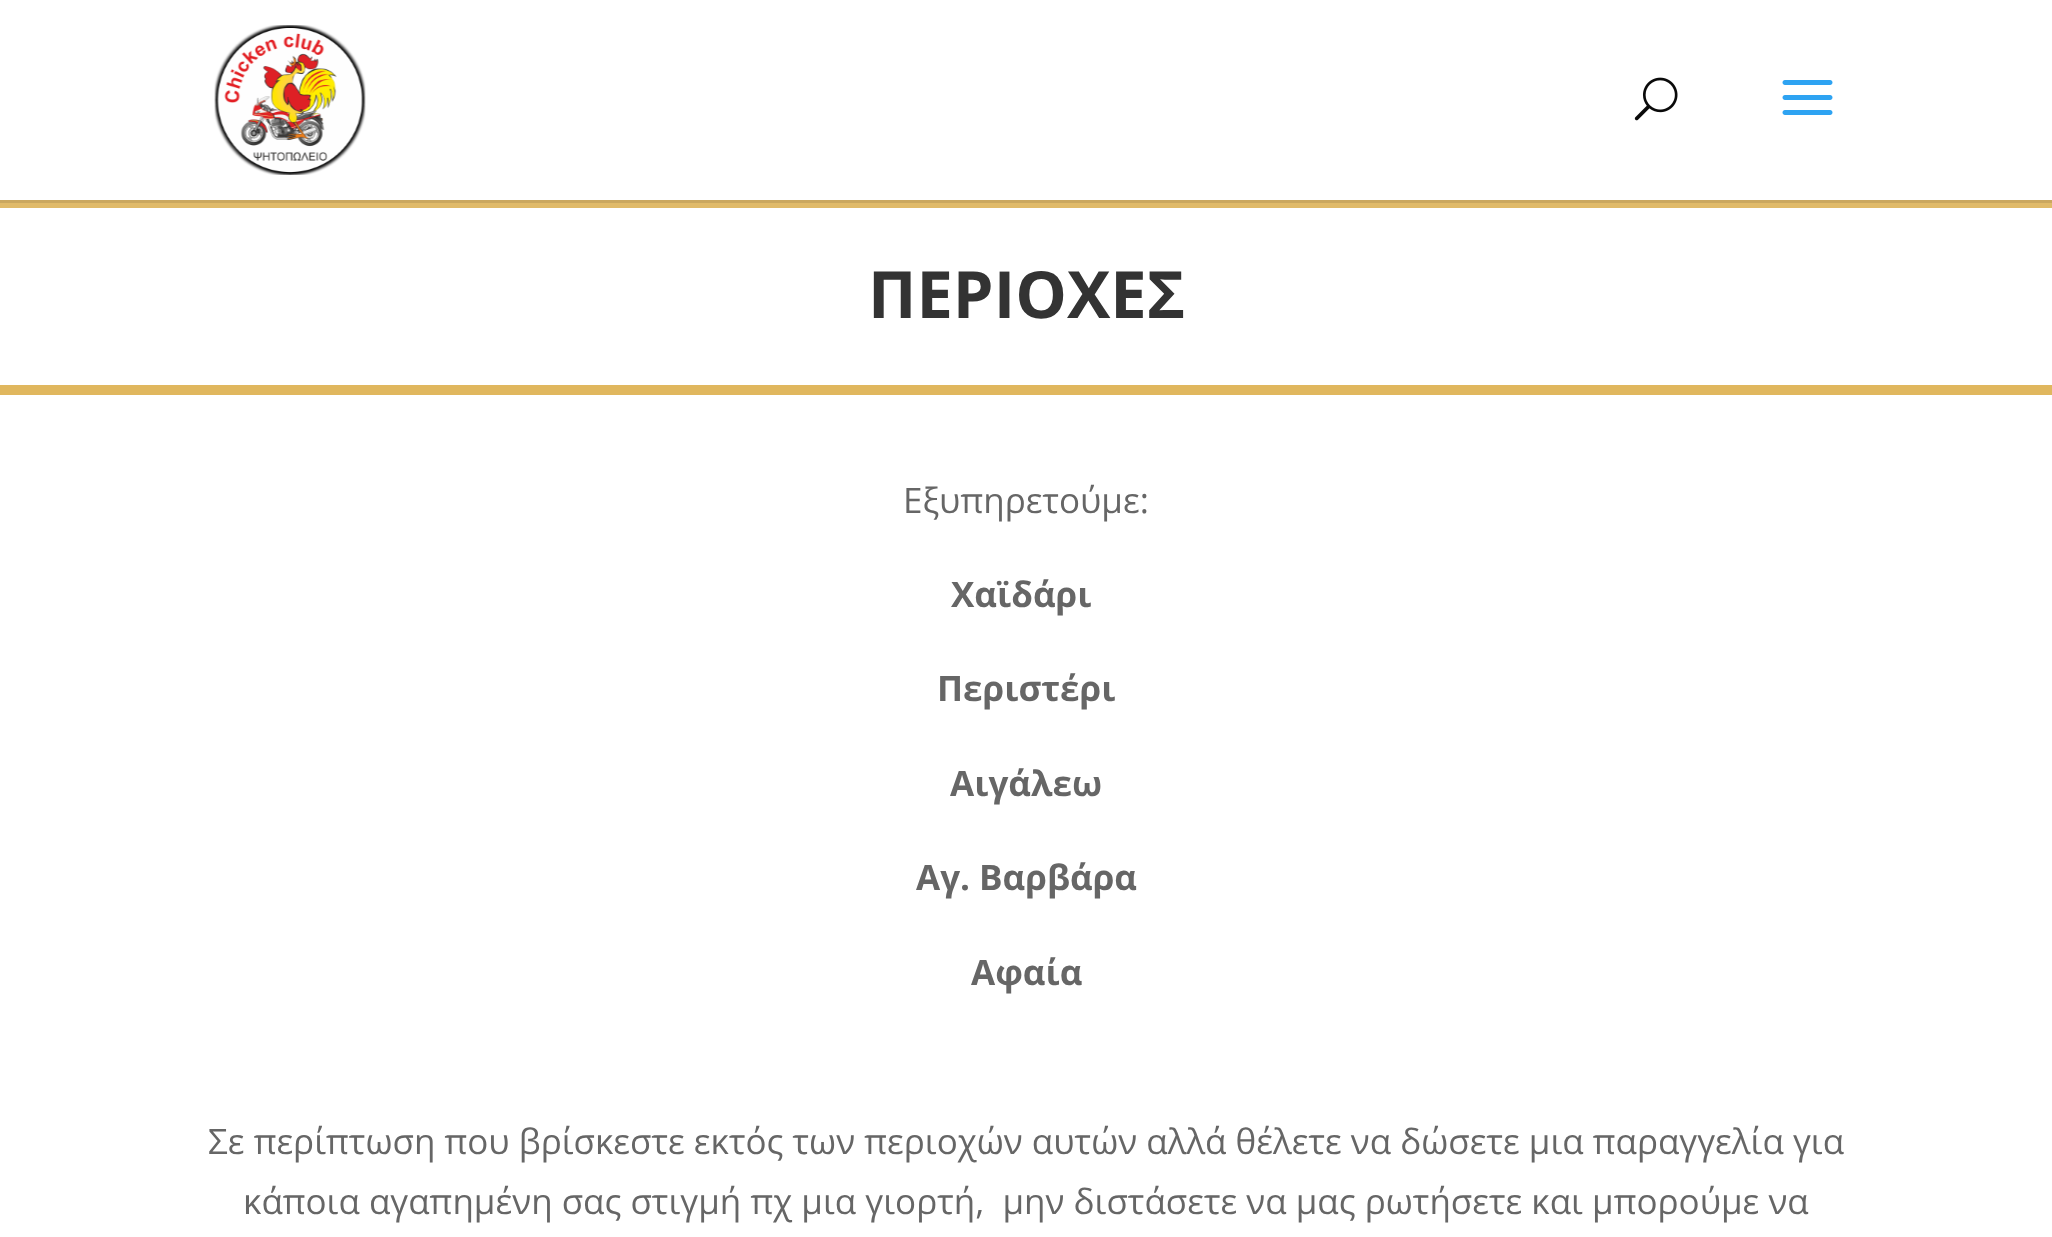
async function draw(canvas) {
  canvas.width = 2052;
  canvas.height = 1237;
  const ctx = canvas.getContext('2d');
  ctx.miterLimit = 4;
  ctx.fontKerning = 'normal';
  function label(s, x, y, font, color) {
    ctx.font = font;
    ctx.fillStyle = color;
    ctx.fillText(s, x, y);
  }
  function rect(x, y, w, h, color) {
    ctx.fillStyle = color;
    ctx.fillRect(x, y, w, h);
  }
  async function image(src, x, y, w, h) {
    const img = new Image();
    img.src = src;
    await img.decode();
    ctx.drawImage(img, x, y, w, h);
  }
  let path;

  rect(0, 0, 2052, 1237, '#fff');
  ctx.fillStyle = '#caa75f';
  path = new Path2D('M0 200V203H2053V3H2052V200Z');
  ctx.fill(path);
  await image('assets/img1.png', 214, 25, 152, 150);
  await image('assets/img2.png', 1634, 77, 44, 44);
  await image('assets/img3.png', 1782, 80, 51, 35);
  rect(0, 203, 2052, 5, '#e0ba69');
  rect(0, 385, 2052, 10, '#e0b75e');
  label('ΠΕΡΙΟΧΕΣ', 868, 318, 'bold 65px Open Sans', '#333');
  label('Εξυπηρετούμε:', 903, 513, '35px Open Sans', '#666');
  label('Χαϊδάρι', 951, 607, 'bold 35px Open Sans', '#666');
  label('Περιστέρι', 937, 701, 'bold 35px Open Sans', '#666');
  label('Αιγάλεω', 950, 796, 'bold 35px Open Sans', '#666');
  label('Αγ. Βαρβάρα', 916, 890, 'bold 35px Open Sans', '#666');
  label('Αφαία', 971, 985, 'bold 35px Open Sans', '#666');
  label('Σε περίπτωση που βρίσκεστε εκτός των περιοχών αυτών αλλά θέλετε να δώσετε μια παραγγελία για', 208, 1154, '35px Open Sans', '#666');
  label('κάποια αγαπημένη σας στιγμή πχ μια γιορτή,  μην διστάσετε να μας ρωτήσετε και μπορούμε να', 243, 1214, '35px Open Sans', '#666');
}

draw(document.querySelector('canvas'));
